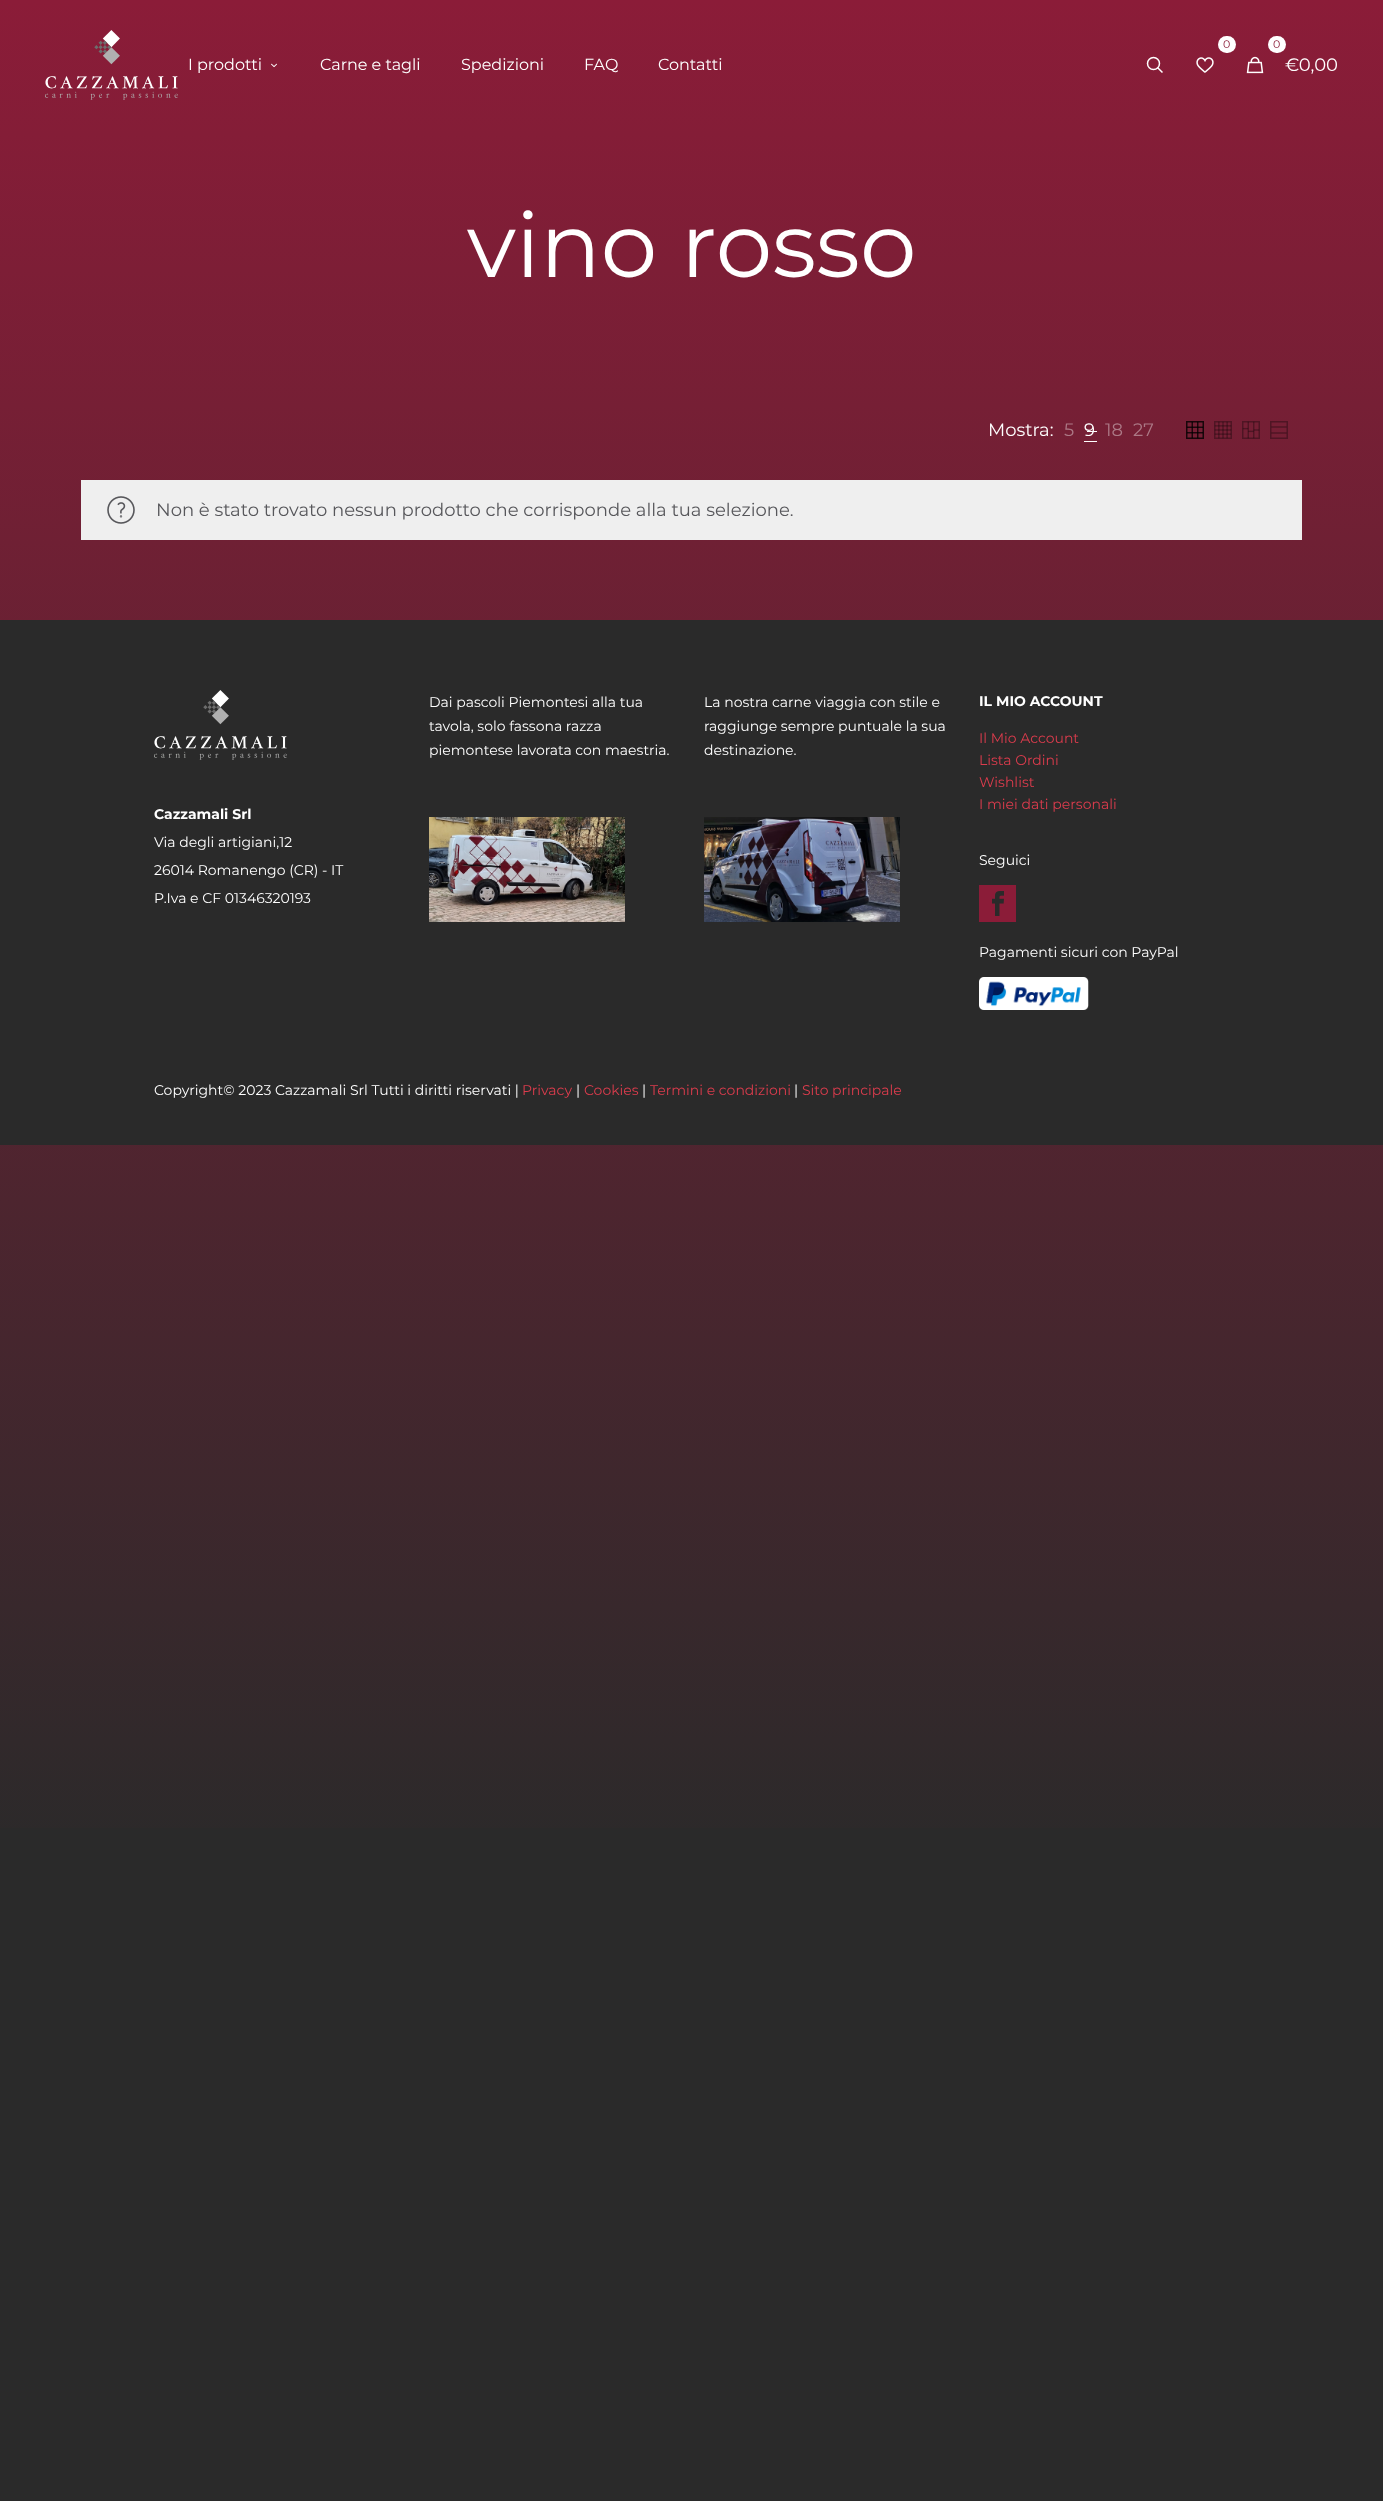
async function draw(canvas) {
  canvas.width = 1383;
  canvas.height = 2501;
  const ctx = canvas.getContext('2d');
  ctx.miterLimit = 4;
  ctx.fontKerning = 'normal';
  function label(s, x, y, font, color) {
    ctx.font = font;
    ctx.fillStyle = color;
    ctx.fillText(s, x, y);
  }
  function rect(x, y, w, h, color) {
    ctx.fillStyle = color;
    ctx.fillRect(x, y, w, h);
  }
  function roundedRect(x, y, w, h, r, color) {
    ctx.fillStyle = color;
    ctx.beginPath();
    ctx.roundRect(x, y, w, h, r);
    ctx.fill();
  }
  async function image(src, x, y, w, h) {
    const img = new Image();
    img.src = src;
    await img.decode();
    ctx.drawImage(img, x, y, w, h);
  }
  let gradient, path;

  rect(0, 0, 1383, 2501, '#2a2a2a');
  gradient = ctx.createLinearGradient(691, 0, 692, 1876);
  gradient.addColorStop(0, '#8b1c38');
  gradient.addColorStop(1, '#2a2a2a');
  ctx.fillStyle = gradient;
  ctx.fillRect(0, 0, 1383, 1828);
  await image('assets/img1.png', 45, 30, 133, 70);
  label('I prodotti', 188, 70, '16px Montserrat', '#fff');
  await image('assets/img2.png', 271, 63, 6, 5);
  label('Carne e tagli', 320, 70, '16px Montserrat', '#fff');
  label('Spedizioni', 461, 70, '16px Montserrat', '#fff');
  label('FAQ', 584, 70, '16px Montserrat', '#fff');
  label('Contatti', 658, 70, '16px Montserrat', '#fff');
  ctx.beginPath();
  ctx.arc(1153.5, 63.5, 6, 0, 2 * Math.PI);
  ctx.strokeStyle = '#fff';
  ctx.lineWidth = 1.5;
  ctx.stroke();
  path = new Path2D('M1157.5 67.5L1162.5 72.5');
  ctx.stroke(path);
  roundedRect(1218, 36, 18, 17, 8.5, '#fff');
  label('0', 1223, 48, '11px Montserrat', '#8b1c38');
  await image('assets/img3.png', 1196, 57, 18, 16);
  roundedRect(1268, 36, 18, 17, 8.5, '#fff');
  label('0', 1273, 48, '11px Montserrat', '#8b1c38');
  await image('assets/img4.png', 1246, 56, 18, 18);
  label('€0,00', 1285, 71, '18px Montserrat', '#fff');
  label('vino rosso', 467, 277, '90px Montserrat', '#fff');
  label('Mostra:', 988, 436, '18px Montserrat', '#fff');
  label('5', 1064, 436, '18px Montserrat', '#ac7986');
  rect(1087, 431, 10, 1, '#fff');
  label('9', 1084, 436, '18px Montserrat', '#fff');
  rect(1084, 441, 13, 1, '#fff');
  label('18', 1105, 436, '18px Montserrat', '#ac7986');
  label('27', 1133, 436, '18px Montserrat', '#ac7986');
  await image('assets/img5.png', 1186, 421, 18, 18);
  await image('assets/img6.png', 1214, 421, 18, 18);
  await image('assets/img7.png', 1242, 421, 18, 18);
  ctx.strokeStyle = '#4f1524';
  ctx.strokeRect(1270.75, 421.75, 16.5, 16.5);
  path = new Path2D('M1271 427H1287M1271 433H1287');
  ctx.strokeStyle = '#461320cc';
  ctx.lineWidth = 1.4;
  ctx.stroke(path);
  rect(81, 480, 1221, 60, '#efefef');
  await image('assets/img8.png', 107, 496, 28, 28);
  label('Non è stato trovato nessun prodotto che corrisponde alla tua selezione.', 156, 516, '18px Montserrat', '#57575b');
  rect(0, 620, 1383, 525, '#2a2a2a');
  await image('assets/img9.png', 154, 690, 133, 70);
  label('Cazzamali Srl', 154, 819, 'bold 14px Montserrat', '#fff');
  label('Via degli artigiani,12', 154, 847, '14px Montserrat', '#fff');
  label('26014 Romanengo (CR) - IT', 154, 875, '14px Montserrat', '#fff');
  label('P.Iva e CF 01346320193', 154, 903, '14px Montserrat', '#fff');
  label('Dai pascoli Piemontesi alla tua', 429, 707, '14px Montserrat', '#fff');
  label('tavola, solo fassona razza', 429, 731, '14px Montserrat', '#fff');
  label('piemontese lavorata con maestria.', 429, 755, '14px Montserrat', '#fff');
  await image('assets/img10.png', 429, 817, 196, 105);
  label('La nostra carne viaggia con stile e', 704, 707, '14px Montserrat', '#fff');
  label('raggiunge sempre puntuale la sua', 704, 731, '14px Montserrat', '#fff');
  label('destinazione.', 704, 755, '14px Montserrat', '#fff');
  await image('assets/img11.png', 704, 817, 196, 105);
  label('IL MIO ACCOUNT', 979, 706, 'bold 14px Montserrat', '#fff');
  label('Il Mio Account', 979, 743, '14px Montserrat', '#dc3c4d');
  label('Lista Ordini', 979, 765, '14px Montserrat', '#dc3c4d');
  label('Wishlist', 979, 787, '14px Montserrat', '#dc3c4d');
  label('I miei dati personali', 979, 809, '14px Montserrat', '#dc3c4d');
  label('Seguici', 979, 865, '14px Montserrat', '#fff');
  await image('assets/img12.png', 979, 885, 37, 37);
  label('Pagamenti sicuri con PayPal', 979, 957, '14px Montserrat', '#fff');
  await image('assets/img13.png', 979, 977, 110, 33);
  label('Copyright© 2023 Cazzamali Srl Tutti i diritti riservati |', 154, 1095, '14px Montserrat', '#fff');
  label('Privacy', 522, 1095, '14px Montserrat', '#dc3c4d');
  label('|', 576, 1095, '14px Montserrat', '#fff');
  label('Cookies', 584, 1095, '14px Montserrat', '#dc3c4d');
  label('|', 642, 1095, '14px Montserrat', '#fff');
  label('Termini e condizioni', 650, 1095, '14px Montserrat', '#dc3c4d');
  label('|', 794, 1095, '14px Montserrat', '#fff');
  label('Sito principale', 802, 1095, '14px Montserrat', '#dc3c4d');
}

draw(document.querySelector('canvas'));
